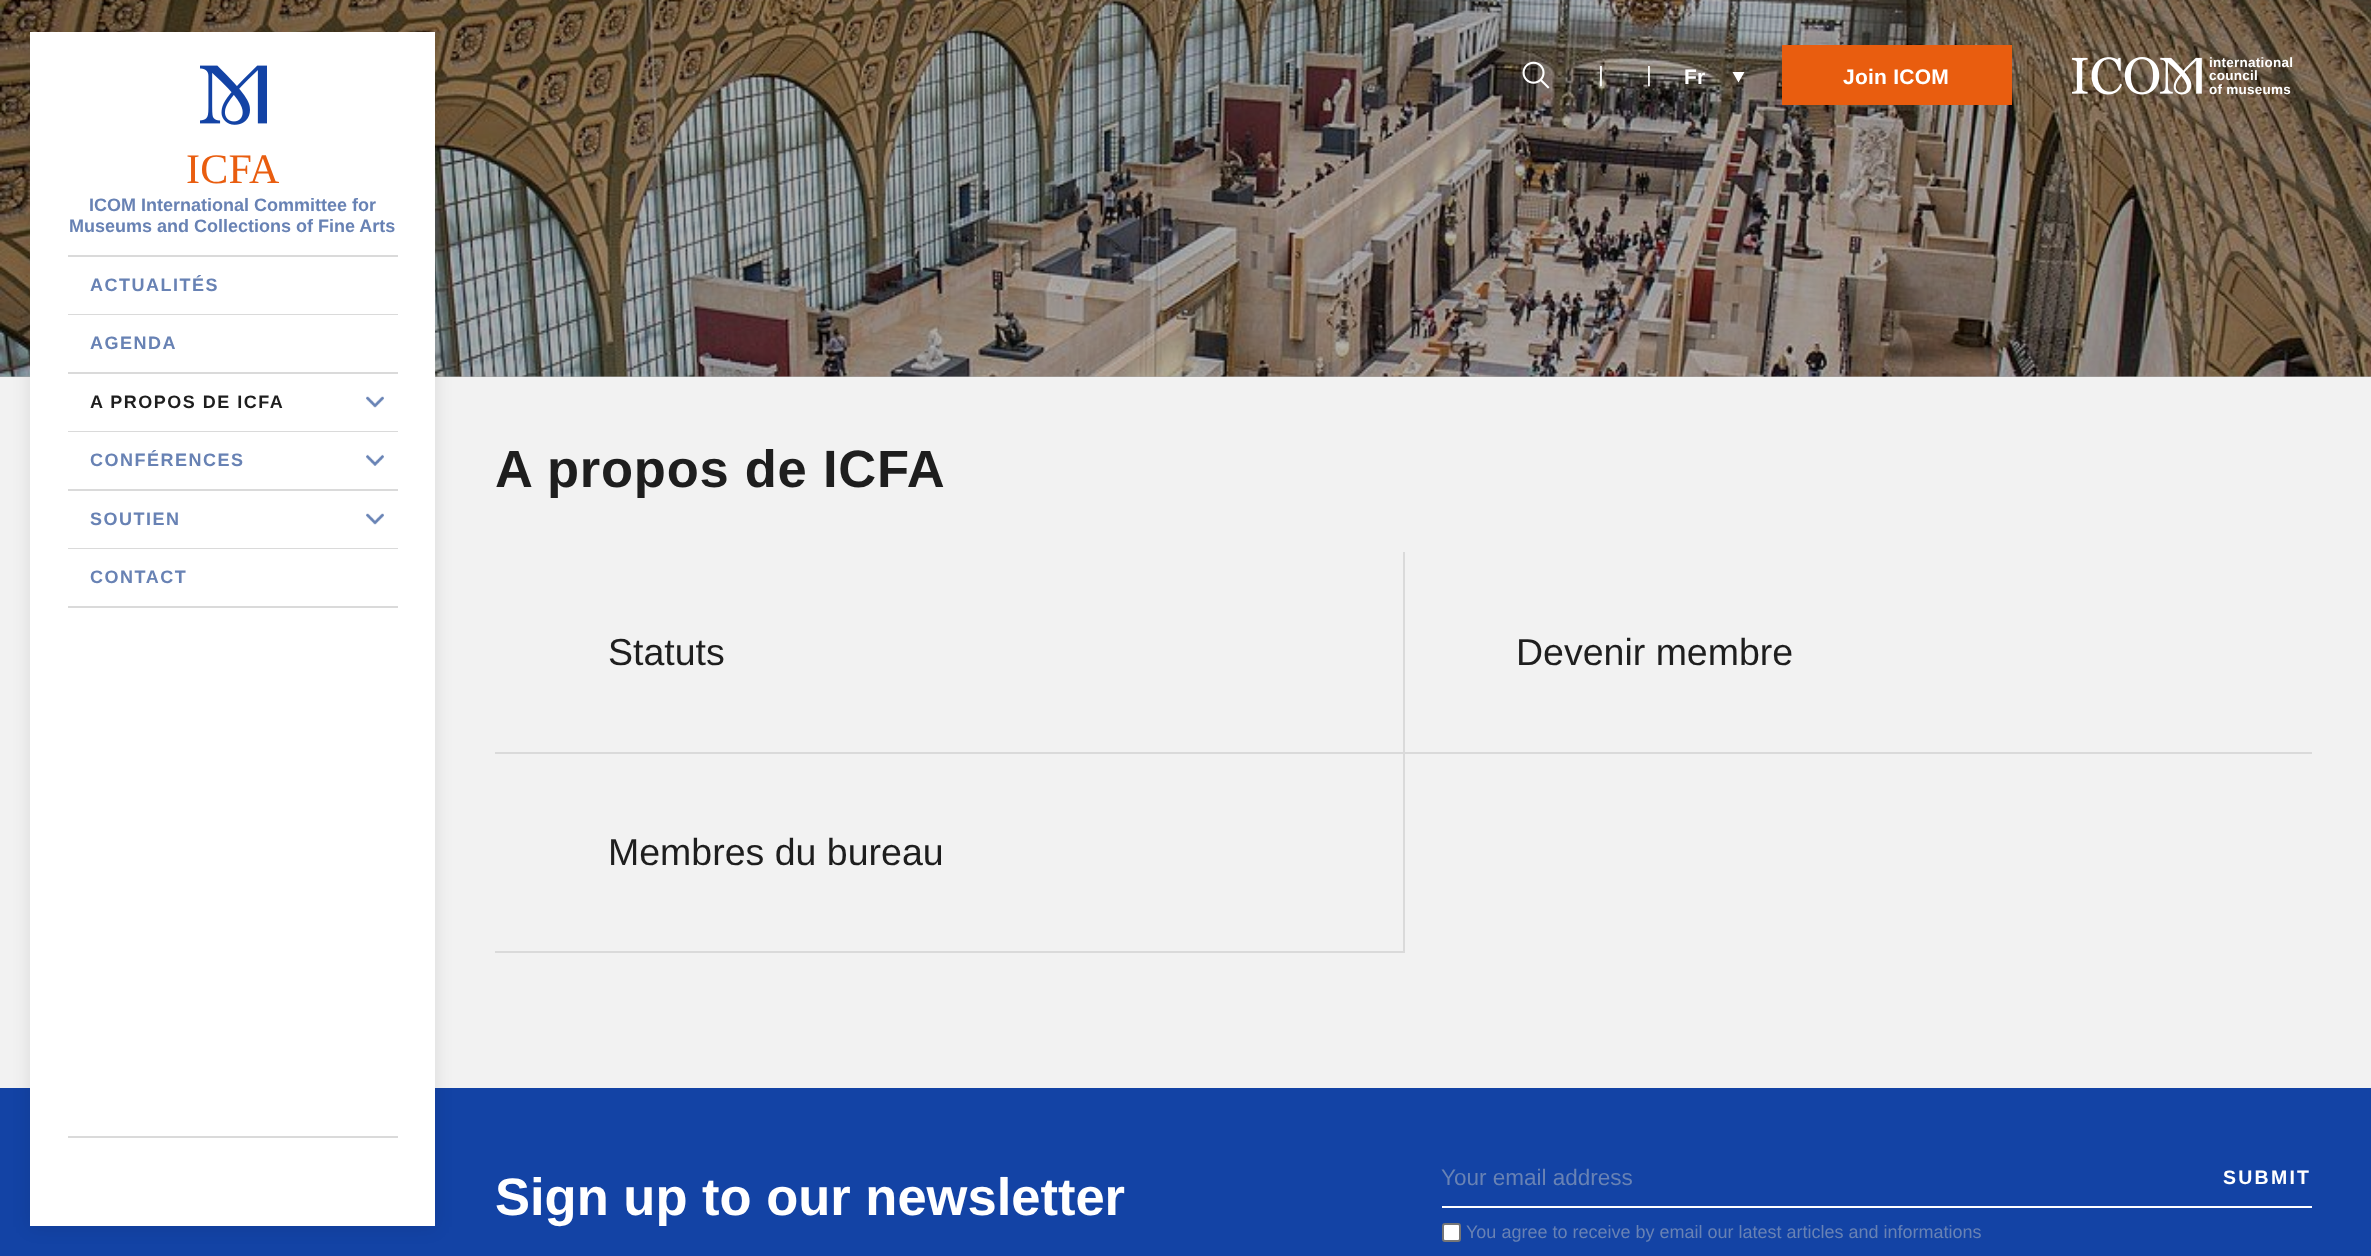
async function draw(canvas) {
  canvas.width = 2371;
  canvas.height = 1256;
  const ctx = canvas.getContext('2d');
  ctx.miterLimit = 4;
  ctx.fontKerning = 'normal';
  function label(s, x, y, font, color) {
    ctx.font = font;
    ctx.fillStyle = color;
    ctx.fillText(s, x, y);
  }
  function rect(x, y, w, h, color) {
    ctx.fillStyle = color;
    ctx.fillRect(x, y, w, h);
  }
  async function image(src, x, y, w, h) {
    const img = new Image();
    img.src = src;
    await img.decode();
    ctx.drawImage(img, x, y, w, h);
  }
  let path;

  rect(0, 0, 2371, 1256, '#f2f2f2');
  rect(0, 376, 2371, 1, '#a9a9a9');
  await image('assets/img6.png', 0, 0, 2371, 377);
  await image('assets/img1.png', 1522, 61, 28, 28);
  label('|', 1598, 83, '24px Roboto', '#fff');
  label('|', 1646, 83, '24px Roboto', '#fff');
  ctx.letterSpacing = '0.25px';
  label('Fr', 1684, 84, 'bold 21px Liberation Sans', '#fff');
  path = new Path2D('M1732.5 72H1744.5L1738.5 82.5Z');
  ctx.fill(path);
  rect(1782, 45, 230, 60, '#e95d0f');
  label('Join ICOM', 1843, 84, 'bold 21px Liberation Sans', '#fff');
  await image('assets/img2.png', 2072, 57, 130, 38);
  label('international', 2209, 67, 'bold 13.5px Liberation Sans', '#fff');
  label('council', 2209, 80, 'bold 13.5px Liberation Sans', '#fff');
  label('of museums', 2209, 94, 'bold 13.5px Liberation Sans', '#fff');
  rect(0, 1088, 2371, 168, '#1343a5');
  ctx.fillStyle = '#0000001a';
  ctx.filter = 'blur(9px)';
  ctx.beginPath();
  ctx.rect(30, 33, 405, 1194);
  ctx.fill();
  ctx.filter = 'none';
  rect(30, 32, 405, 1194, '#fff');
  rect(68, 255, 330, 2, '#dadada');
  await image('assets/img3.png', 200, 65, 67, 60);
  label('ICFA', 186, 183, '42px Liberation Serif', '#e95d0f');
  ctx.letterSpacing = '0px';
  label('ICOM International Committee for', 89, 211, 'bold 18px Liberation Sans', '#6882b4');
  label('Museums and Collections of Fine Arts', 69, 232, 'bold 18px Liberation Sans', '#6882b4');
  rect(68, 314, 330, 1, '#dadada');
  ctx.letterSpacing = '1.5px';
  label('ACTUALITÉS', 90, 291, 'bold 18px Liberation Sans', '#6882b4');
  rect(68, 372, 330, 2, '#dadada');
  label('AGENDA', 90, 349, 'bold 18px Liberation Sans', '#6882b4');
  rect(68, 431, 330, 1, '#dadada');
  label('A PROPOS DE ICFA', 90, 408, 'bold 18px Liberation Sans', '#1e1e1e');
  await image('assets/img4.png', 366, 396, 18, 12);
  rect(68, 489, 330, 2, '#dadada');
  label('CONFÉRENCES', 90, 466, 'bold 18px Liberation Sans', '#6882b4');
  await image('assets/img5.png', 366, 454, 18, 12);
  rect(68, 548, 330, 1, '#dadada');
  label('SOUTIEN', 90, 525, 'bold 18px Liberation Sans', '#6882b4');
  await image('assets/img4.png', 366, 513, 18, 12);
  rect(68, 606, 330, 2, '#dadada');
  label('CONTACT', 90, 583, 'bold 18px Liberation Sans', '#6882b4');
  rect(68, 1136, 330, 2, '#dadada');
  ctx.letterSpacing = '0.75px';
  label('A propos de ICFA', 495, 487, 'bold 52.5px Liberation Sans', '#1e1e1e');
  rect(1403, 552, 2, 201, '#dadada');
  rect(495, 752, 1817, 2, '#dadada');
  ctx.letterSpacing = '0px';
  label('Statuts', 608, 665, '37.5px Liberation Sans', '#1e1e1e');
  label('Devenir membre', 1516, 665, '37.5px Liberation Sans', '#1e1e1e');
  rect(1403, 753, 2, 200, '#dadada');
  rect(495, 951, 909, 2, '#dadada');
  label('Membres du bureau', 608, 865, '37.5px Liberation Sans', '#1e1e1e');
  label('Sign up to our newsletter', 495, 1215, 'bold 52.5px Liberation Sans', '#fff');
  rect(1442, 1206, 870, 2, '#fff');
  label('Your email address', 1441, 1185, '22.5px Liberation Sans', '#6882b4');
  ctx.fillStyle = '#fff';
  ctx.beginPath();
  ctx.roundRect(1443, 1224, 17, 17, 2);
  ctx.fill();
  ctx.strokeStyle = '#767676';
  ctx.lineWidth = 2;
  ctx.stroke();
  label('You agree to receive by email our latest articles and informations', 1466, 1238, '18px Liberation Sans', '#6882b4');
  ctx.letterSpacing = '2.25px';
  label('SUBMIT', 2223, 1184, 'bold 19.5px Liberation Sans', '#fff');
}

draw(document.querySelector('canvas'));
